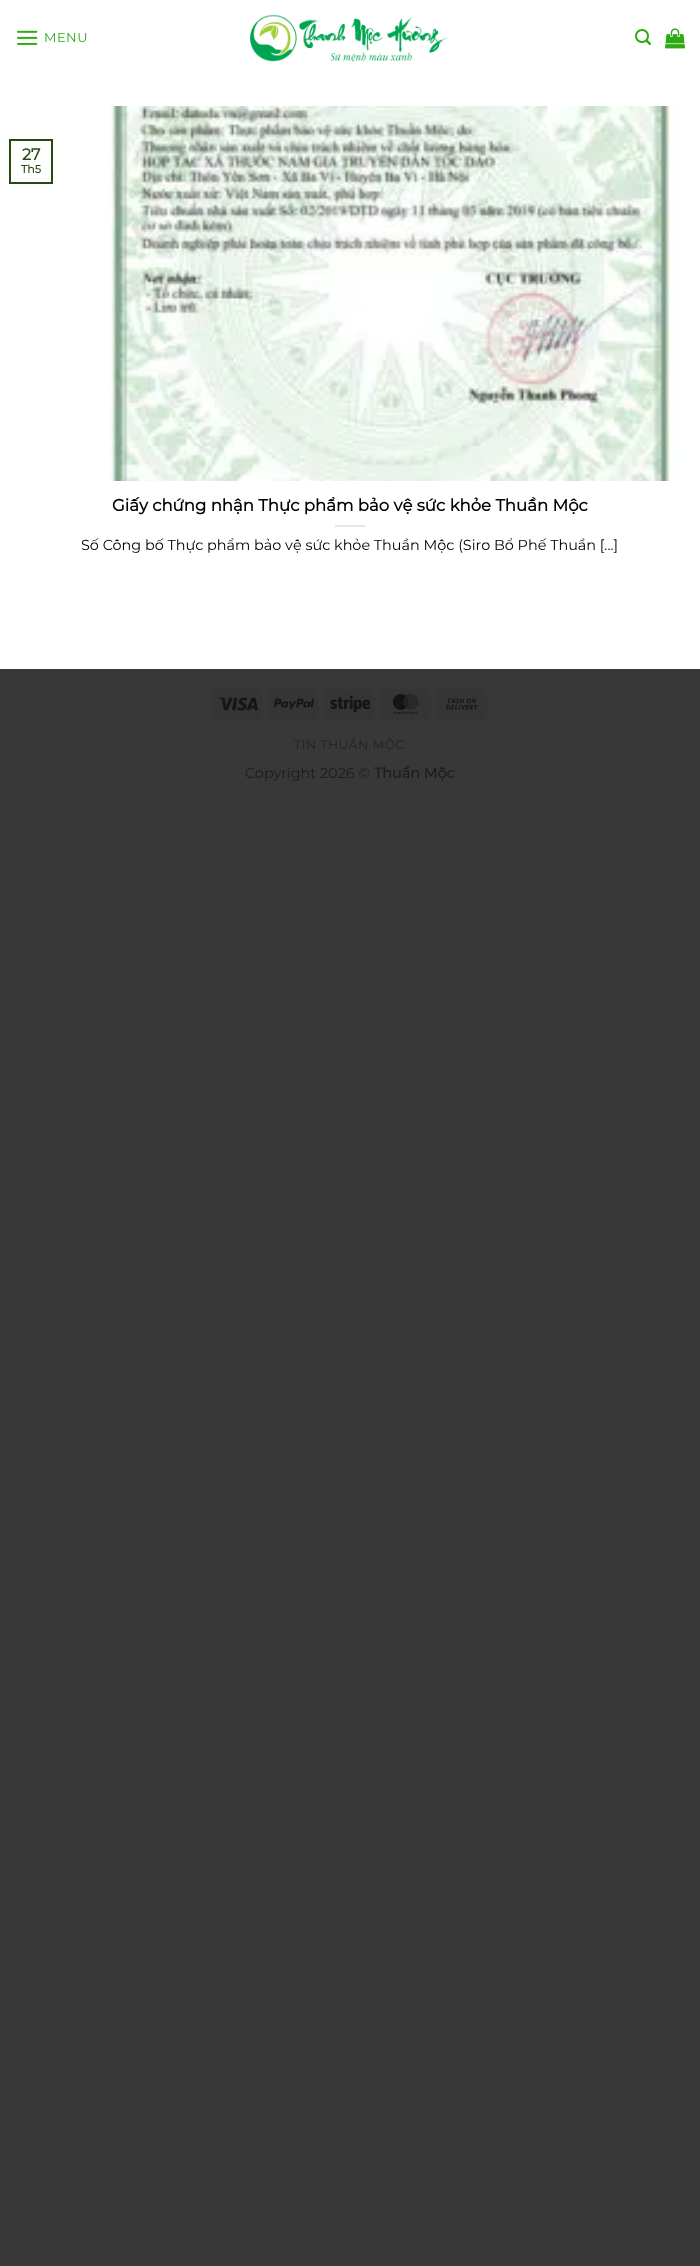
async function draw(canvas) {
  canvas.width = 700;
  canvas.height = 2266;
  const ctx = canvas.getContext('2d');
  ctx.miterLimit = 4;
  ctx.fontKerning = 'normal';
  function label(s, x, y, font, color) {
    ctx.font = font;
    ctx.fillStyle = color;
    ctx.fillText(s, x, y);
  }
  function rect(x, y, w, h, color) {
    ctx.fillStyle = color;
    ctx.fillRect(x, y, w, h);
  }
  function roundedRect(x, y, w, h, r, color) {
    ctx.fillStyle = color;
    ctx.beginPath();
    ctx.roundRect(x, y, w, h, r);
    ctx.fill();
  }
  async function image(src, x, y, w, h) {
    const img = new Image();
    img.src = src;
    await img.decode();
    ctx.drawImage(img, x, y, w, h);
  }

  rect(0, 0, 700, 2266, '#383838');
  rect(0, 0, 700, 669, '#fff');
  await image('assets/img1.png', 17, 30, 21, 15);
  ctx.letterSpacing = '0.5px';
  label('MENU', 44, 42, '100 13px Montserrat', '#2eaa12');
  await image('assets/img2.png', 250, 14, 197, 48);
  await image('assets/img3.png', 635, 29, 16, 16);
  await image('assets/img4.png', 665, 28, 20, 21);
  ctx.strokeStyle = '#284b10';
  ctx.lineWidth = 2;
  ctx.strokeRect(10, 140, 42, 43);
  ctx.letterSpacing = '0px';
  label('27', 22, 160, 'bold 16px Montserrat', '#284b10');
  label('Th5', 21, 173, 'bold 11px Montserrat', '#284b10');
  await image('assets/img5.png', 109, 106, 571, 375);
  label('Giấy chứng nhận Thực phẩm bảo vệ sức khỏe Thuần Mộc', 112, 511, 'bold 16.55px Montserrat', '#000');
  rect(335, 525, 30, 2, '#e6e6e6');
  label('Số Công bố Thực phẩm bảo vệ sức khỏe Thuần Mộc (Siro Bổ Phế Thuần [...]', 81, 550, '100 14.4px Montserrat', '#000');
  roundedRect(213, 689, 50, 31, 5, '#353535');
  await image('assets/img6.png', 218, 697, 40, 14);
  roundedRect(269, 689, 50, 31, 5, '#353535');
  await image('assets/img7.png', 274, 698, 40, 12);
  roundedRect(325, 689, 50, 31, 5, '#353535');
  await image('assets/img8.png', 330, 695, 40, 18);
  roundedRect(381, 689, 50, 31, 5, '#353535');
  await image('assets/img9.png', 393, 694, 26, 20);
  roundedRect(437, 689, 50, 31, 5, '#353535');
  await image('assets/img10.png', 446, 698, 32, 12);
  ctx.letterSpacing = '0.6px';
  label('TIN THUẦN MỘC', 294, 749, '100 12.25px Montserrat', '#222');
  ctx.letterSpacing = '0px';
  label('Copyright 2026 ©', 245, 778, '100 14.4px Montserrat', '#1c1c1c');
  label('Thuần Mộc', 374, 778, 'bold 14.4px Montserrat', '#1c1c1c');
}

draw(document.querySelector('canvas'));
